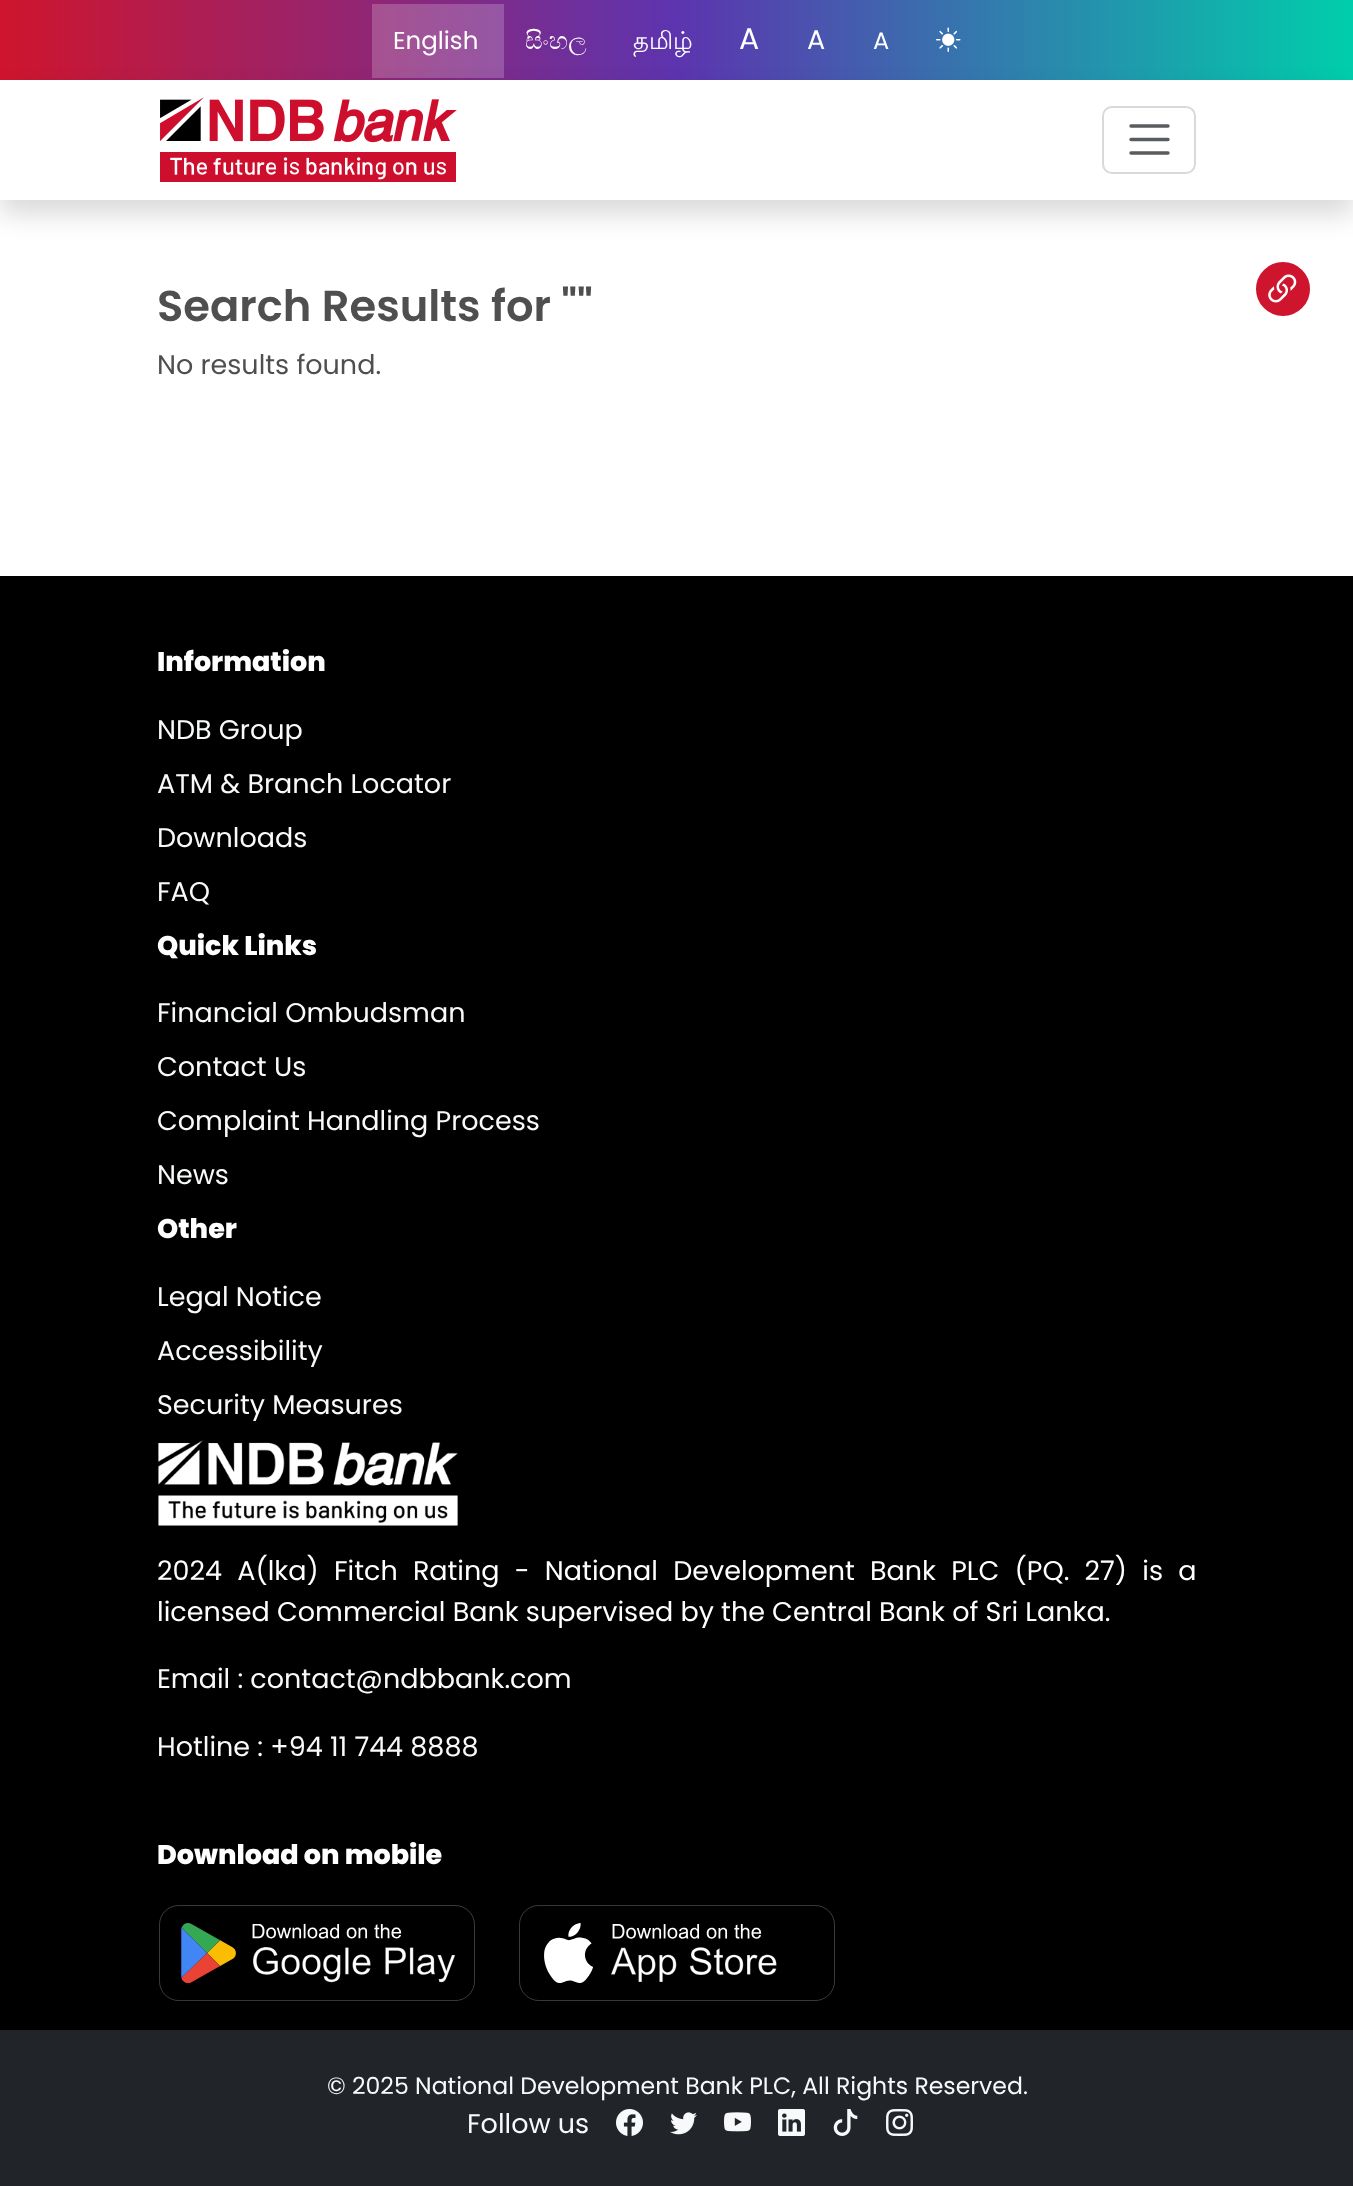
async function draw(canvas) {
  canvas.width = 1353;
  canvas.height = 2186;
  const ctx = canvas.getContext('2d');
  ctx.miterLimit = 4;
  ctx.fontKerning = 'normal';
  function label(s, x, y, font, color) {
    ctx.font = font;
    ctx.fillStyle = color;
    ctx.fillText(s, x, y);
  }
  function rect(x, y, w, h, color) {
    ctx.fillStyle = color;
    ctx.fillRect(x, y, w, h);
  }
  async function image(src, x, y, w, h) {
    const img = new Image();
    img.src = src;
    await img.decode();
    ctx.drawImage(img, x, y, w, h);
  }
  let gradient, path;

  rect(0, 0, 1353, 2186, '#fff');
  gradient = ctx.createLinearGradient(0, 40, 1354, 40);
  gradient.addColorStop(0, '#cf152d');
  gradient.addColorStop(0.5, '#5d34af');
  gradient.addColorStop(1, '#00ceab');
  ctx.fillStyle = gradient;
  ctx.fillRect(0, 0, 1353, 80);
  gradient = ctx.createLinearGradient(0, 40, 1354, 40);
  gradient.addColorStop(0, '#d94457');
  gradient.addColorStop(0.5, '#7d5dbf');
  gradient.addColorStop(1, '#33d8bc');
  ctx.fillStyle = gradient;
  ctx.fillRect(372, 4, 132, 74);
  label('English', 393, 49, '24.5px Poppins', '#fff');
  label('සිංහල', 525, 49, '24.5px FreeSerif', '#fff');
  label('தமிழ்', 633, 49, '24.5px Lohit Tamil', '#fff');
  label('A', 739, 49, '30px Poppins', '#fff');
  label('A', 807, 49, '27px Poppins', '#fff');
  label('A', 873, 49, '24px Poppins', '#fff');
  await image('assets/img1.png', 936, 27, 25, 25);
  ctx.save();
  path = new Path2D('M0 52H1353V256H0ZM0 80H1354V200H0Z');
  ctx.clip(path, 'evenodd');
  ctx.fillStyle = '#00000026';
  ctx.filter = 'blur(13.5px)';
  ctx.beginPath();
  ctx.rect(0, 94, 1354, 120);
  ctx.fill();
  ctx.filter = 'none';
  ctx.restore();
  await image('assets/img2.png', 160, 97, 297, 85);
  ctx.beginPath();
  ctx.roundRect(1103, 107, 92, 66, 9);
  ctx.strokeStyle = '#d9d9d9';
  ctx.lineWidth = 2;
  ctx.stroke();
  path = new Path2D('M1131 126H1168M1131 139.5H1168M1131 153H1168');
  ctx.strokeStyle = '#595c5f';
  ctx.lineWidth = 3.4;
  ctx.lineCap = 'round';
  ctx.stroke(path);
  label('Search Results for ""', 157, 321, '600 43.25px Poppins', '#4f4f4f');
  label('No results found.', 157, 374, '27px Poppins', '#4f4f4f');
  ctx.fillStyle = '#cf152d';
  ctx.beginPath();
  ctx.arc(1283, 289, 30, 0, 2 * Math.PI);
  ctx.fill();
  ctx.strokeStyle = '#fff';
  ctx.lineWidth = 6;
  ctx.stroke();
  await image('assets/img3.png', 1268, 274, 29, 29);
  rect(0, 576, 1353, 1454, '#000');
  label('Information', 157, 671, '800 27px Poppins', '#fff');
  label('NDB Group', 157, 739, '27px Poppins', '#f8f9fa');
  label('ATM & Branch Locator', 157, 793, '27px Poppins', '#f8f9fa');
  label('Downloads', 157, 847, '27px Poppins', '#f8f9fa');
  label('FAQ', 157, 901, '27px Poppins', '#f8f9fa');
  label('Quick Links', 157, 955, '800 27px Poppins', '#fff');
  label('Financial Ombudsman', 157, 1022, '27px Poppins', '#f8f9fa');
  label('Contact Us', 157, 1076, '27px Poppins', '#f8f9fa');
  label('Complaint Handling Process', 157, 1130, '27px Poppins', '#f8f9fa');
  label('News', 157, 1184, '27px Poppins', '#f8f9fa');
  label('Other', 157, 1238, '800 27px Poppins', '#fff');
  label('Legal Notice', 157, 1306, '27px Poppins', '#f8f9fa');
  label('Accessibility', 157, 1360, '27px Poppins', '#f8f9fa');
  label('Security Measures', 157, 1414, '27px Poppins', '#f8f9fa');
  await image('assets/img4.png', 158, 1440, 300, 86);
  ctx.wordSpacing = '8px';
  label('2024 A(lka) Fitch Rating - National Development Bank PLC (PQ. 27) is a', 157, 1580, '27px Poppins', '#fff');
  ctx.wordSpacing = '0px';
  label('licensed Commercial Bank supervised by the Central Bank of Sri Lanka.', 157, 1621, '27px Poppins', '#fff');
  label('Email : contact@ndbbank.com', 157, 1688, '27px Poppins', '#f8f9fa');
  label('Hotline : +94 11 744 8888', 157, 1756, '27px Poppins', '#f8f9fa');
  label('Download on mobile', 157, 1864, '800 27px Poppins', '#fff');
  await image('assets/img5.png', 159, 1905, 316, 96);
  await image('assets/img6.png', 519, 1905, 316, 96);
  rect(0, 2030, 1353, 156, '#212529');
  label('© 2025 National Development Bank PLC, All Rights Reserved.', 327, 2094, '23.6px Poppins', '#f8f9fa');
  label('Follow us', 467, 2133, '27px Poppins', '#f8f9fa');
  await image('assets/img7.png', 616, 2109, 27, 27);
  await image('assets/img8.png', 670, 2112, 27, 23);
  await image('assets/img9.png', 724, 2112, 27, 20);
  await image('assets/img10.png', 778, 2109, 27, 27);
  await image('assets/img11.png', 833, 2109, 25, 27);
  await image('assets/img12.png', 886, 2109, 27, 27);
}

draw(document.querySelector('canvas'));
